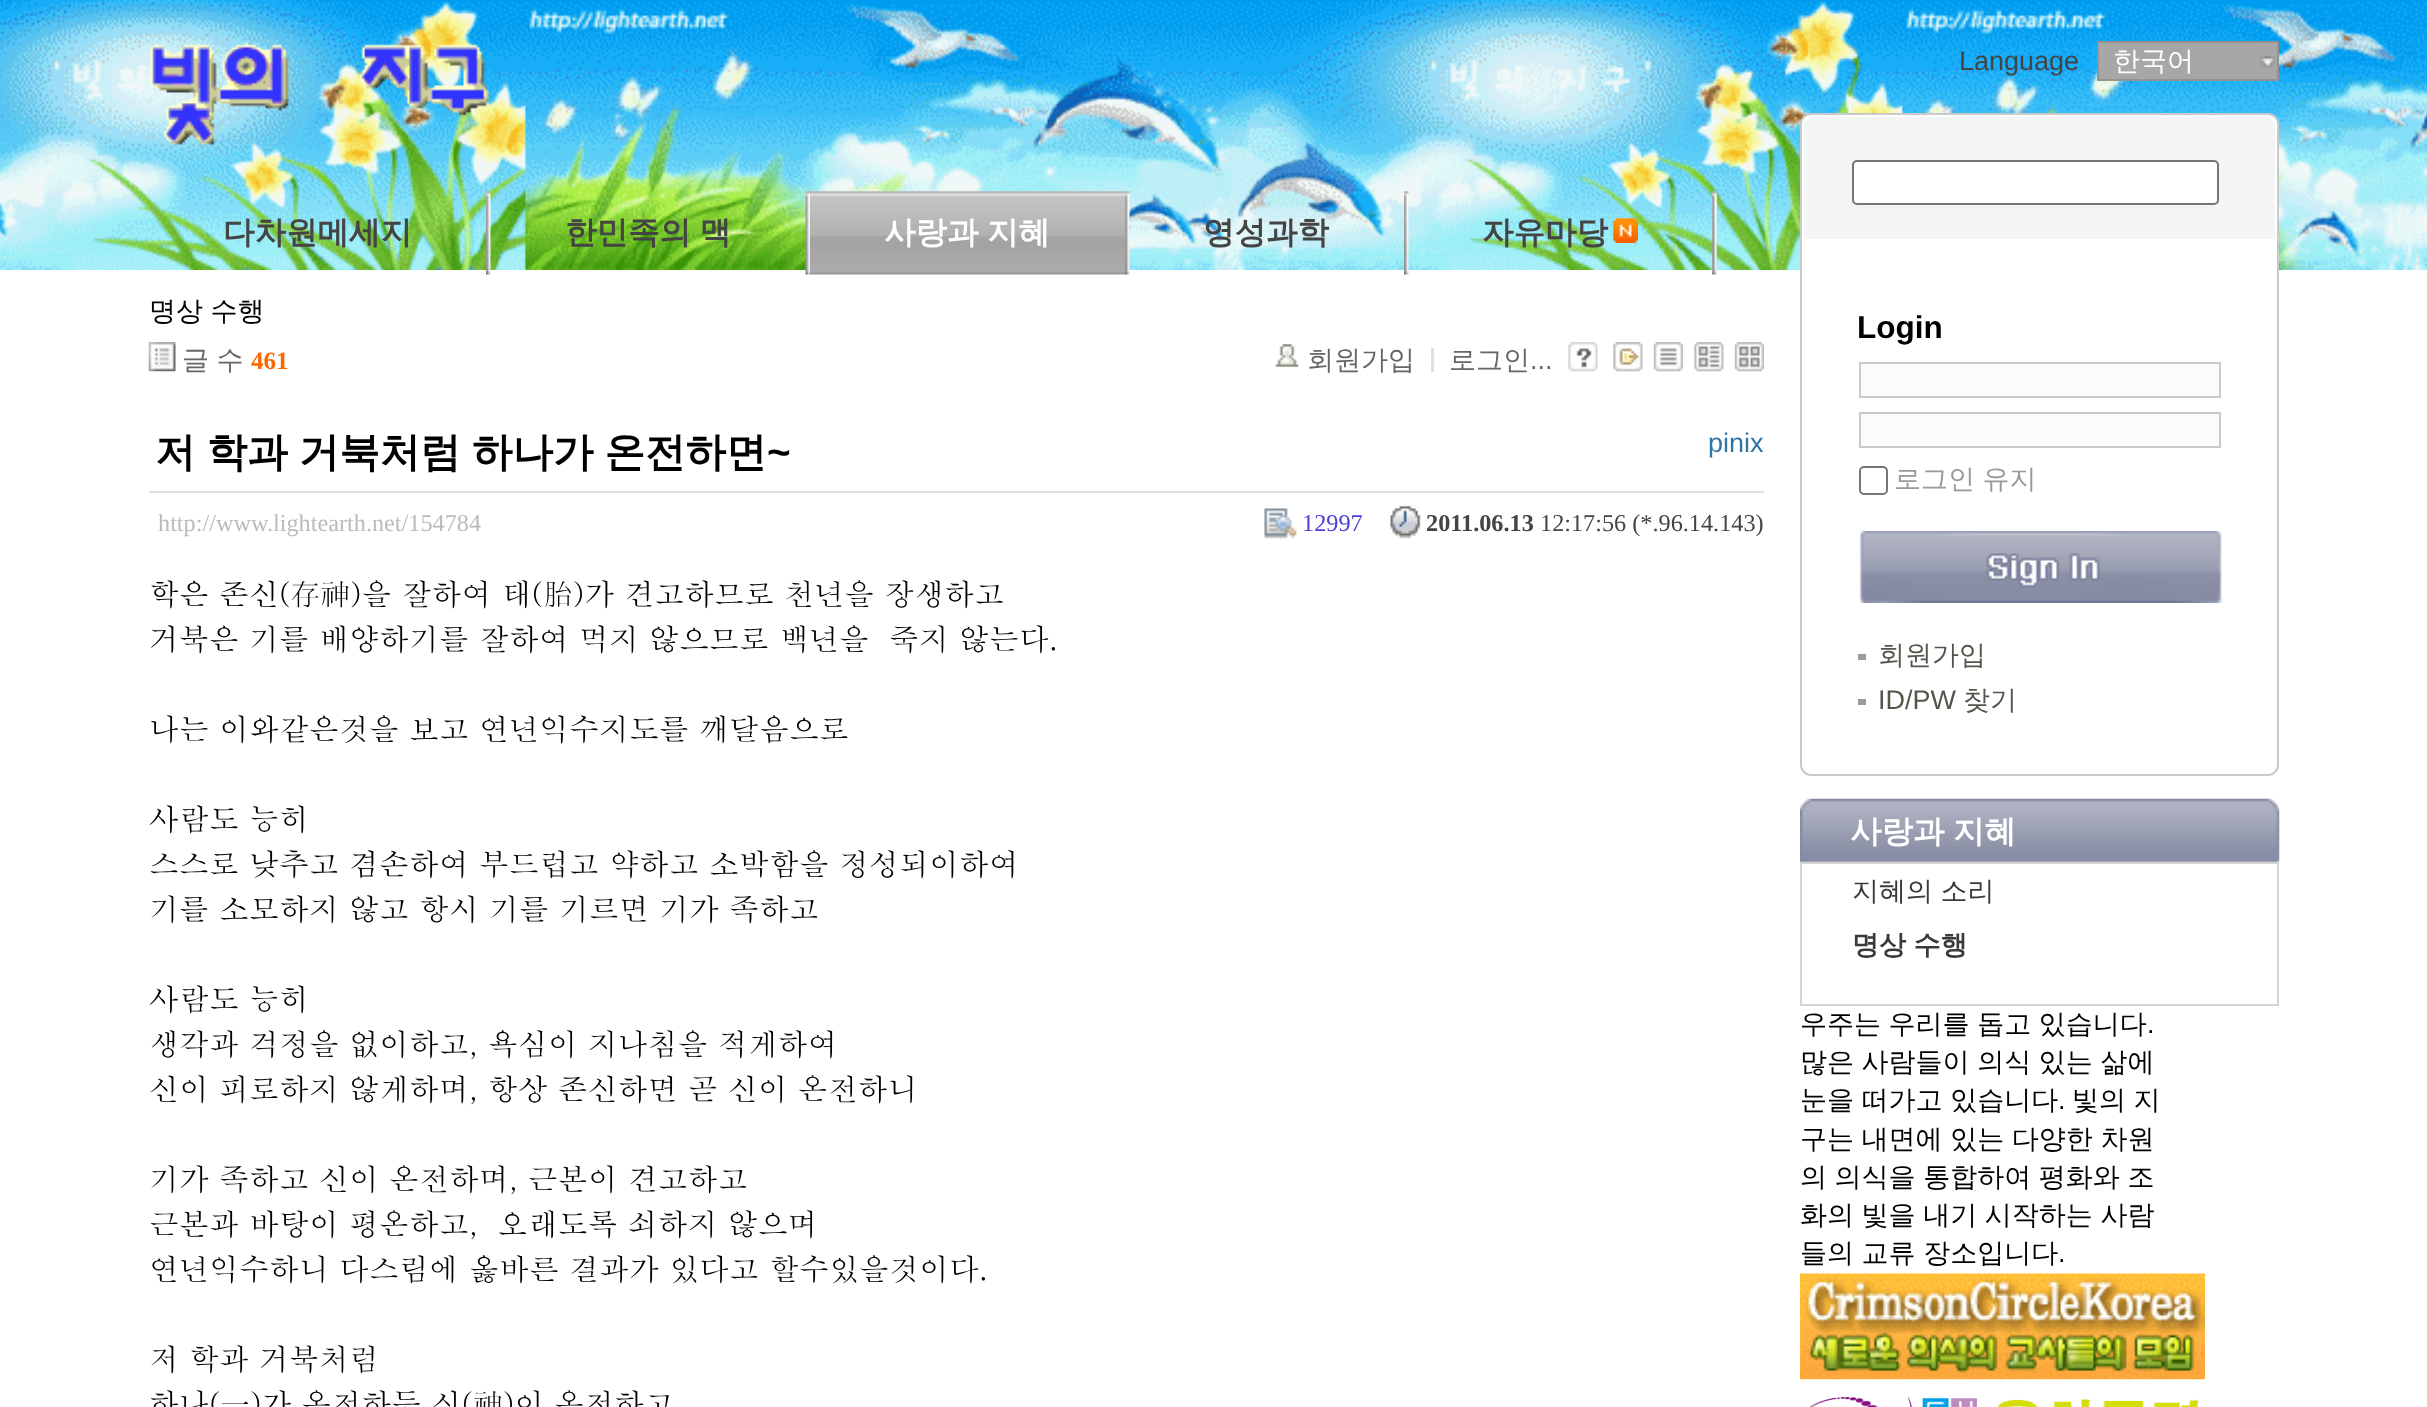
async function draw(canvas) {
  canvas.width = 2427;
  canvas.height = 1407;
  const ctx = canvas.getContext('2d');
  ctx.miterLimit = 4;
  ctx.fontKerning = 'normal';
  function label(s, x, y, font, color) {
    ctx.font = font;
    ctx.fillStyle = color;
    ctx.fillText(s, x, y);
  }
  function rect(x, y, w, h, color) {
    ctx.fillStyle = color;
    ctx.fillRect(x, y, w, h);
  }
  async function image(src, x, y, w, h) {
    const img = new Image();
    img.src = src;
    await img.decode();
    ctx.drawImage(img, x, y, w, h);
  }

  rect(0, 0, 2427, 1407, '#fff');
  await image('assets/img1.png', 0, 0, 2427, 270);
  label('Language', 1959, 70, '27px Liberation Sans', '#444');
  ctx.fillStyle = '#a7a7a7';
  ctx.beginPath();
  ctx.rect(2098, 42, 180, 38);
  ctx.fill();
  ctx.strokeStyle = '#939393';
  ctx.lineWidth = 2;
  ctx.stroke();
  await image('assets/img2.png', 2259, 56, 16, 12);
  label('한국어', 2113, 70, '500 27px WenQuanYi Zen Hei', '#fff');
  await image('assets/img3.png', 150, 42, 339, 103);
  await image('assets/img4.png', 486, 191, 5, 84);
  label('다차원메세지', 223, 243, 'bold 31.5px WenQuanYi Zen Hei', '#444');
  await image('assets/img5.png', 805, 191, 5, 84);
  ctx.wordSpacing = '-1px';
  label('한민족의 맥', 565, 243, 'bold 31.5px WenQuanYi Zen Hei', '#444');
  await image('assets/img6.png', 1125, 191, 5, 84);
  await image('assets/img7.png', 810, 191, 315, 84);
  label('사랑과 지혜', 884, 243, 'bold 31.5px WenQuanYi Zen Hei', '#fff');
  await image('assets/img8.png', 1404, 191, 5, 84);
  ctx.wordSpacing = '0px';
  label('영성과학', 1203, 243, 'bold 31.5px WenQuanYi Zen Hei', '#444');
  await image('assets/img9.png', 1712, 191, 5, 84);
  label('자유마당', 1482, 243, 'bold 31.5px WenQuanYi Zen Hei', '#444');
  await image('assets/img10.png', 1613, 218, 25, 25);
  ctx.wordSpacing = '-0.5px';
  label('명상 수행', 149, 320, '500 27px WenQuanYi Zen Hei', '#000');
  await image('assets/img11.png', 148, 342, 28, 30);
  label('글 수', 182, 369, '500 27px WenQuanYi Zen Hei', '#666');
  ctx.wordSpacing = '0px';
  label('461', 251, 369, 'bold 25px Liberation Serif', '#f60');
  await image('assets/img12.png', 1275, 344, 24, 23);
  label('회원가입', 1307, 369, '500 27px WenQuanYi Zen Hei', '#666');
  label('로그인', 1449, 369, '500 27px WenQuanYi Zen Hei', '#666');
  rect(1431, 348, 3, 24, '#e0e0e0');
  label('...', 1530, 369, '27px Liberation Sans', '#666');
  await image('assets/img13.png', 1568, 342, 30, 30);
  await image('assets/img14.png', 1613, 342, 30, 30);
  await image('assets/img15.png', 1653, 342, 30, 30);
  await image('assets/img16.png', 1694, 342, 30, 30);
  await image('assets/img17.png', 1734, 342, 30, 30);
  rect(149, 491, 1615, 2, '#e0e1db');
  ctx.wordSpacing = '-1px';
  label('저 학과 거북처럼 하나가 온전하면', 155, 466, 'bold 40.5px WenQuanYi Zen Hei', '#000');
  ctx.wordSpacing = '0px';
  label('~', 767, 466, 'bold 40.5px Liberation Sans', '#000');
  label('pinix', 1708, 452, '27px Liberation Sans', '#3074a5');
  label('http://www.lightearth.net/154784', 158, 531, '24.25px Liberation Serif', '#bbb');
  await image('assets/img18.png', 1264, 508, 33, 31);
  label('12997', 1302, 531, '24.25px Liberation Serif', '#4a3fd7');
  await image('assets/img19.png', 1390, 505, 31, 34);
  label('2011.06.13', 1426, 531, 'bold 24.25px Liberation Serif', '#444');
  label('12:17:56 (*.96.14.143)', 1540, 531, '24.25px Liberation Serif', '#444');
  label('학은 존신(存神)을 잘하여 태(胎)가 견고하므로 천년을 장생하고', 149, 605, '30px Batang', '#000');
  label('거북은 기를 배양하기를 잘하여 먹지 않으므로 백년을  죽지 않는다.', 149, 650, '30px Batang', '#000');
  label('나는 이와같은것을 보고 연년익수지도를 깨달음으로', 149, 740, '30px Batang', '#000');
  label('사람도 능히', 149, 830, '30px Batang', '#000');
  label('스스로 낮추고 겸손하여 부드럽고 약하고 소박함을 정성되이하여', 149, 875, '30px Batang', '#000');
  label('기를 소모하지 않고 항시 기를 기르면 기가 족하고', 149, 920, '30px Batang', '#000');
  label('사람도 능히', 149, 1010, '30px Batang', '#000');
  label('생각과 걱정을 없이하고, 욕심이 지나침을 적게하여', 149, 1055, '30px Batang', '#000');
  label('신이 피로하지 않게하며, 항상 존신하면 곧 신이 온전하니', 149, 1100, '30px Batang', '#000');
  label('기가 족하고 신이 온전하며, 근본이 견고하고', 149, 1190, '30px Batang', '#000');
  label('근본과 바탕이 평온하고,  오래도록 쇠하지 않으며', 149, 1235, '30px Batang', '#000');
  label('연년익수하니 다스림에 옳바른 결과가 있다고 할수있을것이다.', 149, 1280, '30px Batang', '#000');
  label('저 학과 거북처럼', 149, 1370, '30px Batang', '#000');
  label('하나(一)가 온전하듯 신(神)이 온전하고', 149, 1415, '30px Batang', '#000');
  ctx.fillStyle = '#fff';
  ctx.beginPath();
  ctx.roundRect(1801, 114, 477, 661, 10);
  ctx.fill();
  ctx.strokeStyle = '#c9c9c9';
  ctx.stroke();
  ctx.fillStyle = '#f3f4f4';
  ctx.beginPath();
  ctx.roundRect(1803, 116, 473, 124, [10, 10, 0, 0]);
  ctx.fill();
  ctx.strokeStyle = '#fff';
  ctx.stroke();
  ctx.fillStyle = '#fff';
  ctx.beginPath();
  ctx.roundRect(1853, 161, 365, 43, 4);
  ctx.fill();
  ctx.strokeStyle = '#767676';
  ctx.stroke();
  label('Login', 1857, 338, 'bold 31.5px Liberation Sans', '#000');
  ctx.fillStyle = '#fbfbfb';
  ctx.beginPath();
  ctx.rect(1860, 363, 360, 34);
  ctx.fill();
  ctx.strokeStyle = '#c9c9c9';
  ctx.stroke();
  ctx.beginPath();
  ctx.rect(1860, 413, 360, 34);
  ctx.fill();
  ctx.stroke();
  ctx.beginPath();
  ctx.roundRect(1860, 467, 27, 27, 4);
  ctx.strokeStyle = '#767676';
  ctx.stroke();
  ctx.wordSpacing = '-0.5px';
  label('로그인 유지', 1894, 488, '500 27px WenQuanYi Zen Hei', '#999');
  await image('assets/img20.png', 1859, 531, 364, 72);
  rect(1858, 654, 8, 6, '#9c9c9c');
  ctx.wordSpacing = '0px';
  label('회원가입', 1878, 664, '500 27px WenQuanYi Zen Hei', '#54564b');
  rect(1858, 699, 8, 6, '#9c9c9c');
  label('ID/PW', 1878, 709, '27px Liberation Sans', '#54564b');
  label('찾기', 1963, 709, '500 27px WenQuanYi Zen Hei', '#54564b');
  await image('assets/img21.png', 1800, 798, 480, 64);
  ctx.wordSpacing = '-1px';
  label('사랑과 지혜', 1850, 842, 'bold 31.5px WenQuanYi Zen Hei', '#fff');
  ctx.strokeStyle = '#d4d4d4';
  ctx.strokeRect(1801, 863, 477, 142);
  ctx.wordSpacing = '-0.5px';
  label('지혜의 소리', 1852, 900, '500 27px WenQuanYi Zen Hei', '#3a3a3a');
  label('명상 수행', 1852, 954, 'bold 27px WenQuanYi Zen Hei', '#3a3a3a');
  label('우주는 우리를 돕고 있습니다', 1800, 1033, '500 27px WenQuanYi Zen Hei', '#000');
  ctx.wordSpacing = '0px';
  label('.', 2147, 1033, '27px Liberation Sans', '#000');
  ctx.wordSpacing = '-0.5px';
  label('많은 사람들이 의식 있는 삶에', 1800, 1071, '500 27px WenQuanYi Zen Hei', '#000');
  label('눈을 떠가고 있습니다', 1800, 1109, '500 27px WenQuanYi Zen Hei', '#000');
  ctx.wordSpacing = '0px';
  label('.', 2058, 1109, '27px Liberation Sans', '#000');
  ctx.wordSpacing = '-0.5px';
  label('빛의 지', 2072, 1109, '500 27px WenQuanYi Zen Hei', '#000');
  label('구는 내면에 있는 다양한 차원', 1800, 1148, '500 27px WenQuanYi Zen Hei', '#000');
  label('의 의식을 통합하여 평화와 조', 1800, 1186, '500 27px WenQuanYi Zen Hei', '#000');
  label('화의 빛을 내기 시작하는 사람', 1800, 1224, '500 27px WenQuanYi Zen Hei', '#000');
  label('들의 교류 장소입니다', 1800, 1262, '500 27px WenQuanYi Zen Hei', '#000');
  ctx.wordSpacing = '0px';
  label('.', 2058, 1262, '27px Liberation Sans', '#000');
  await image('assets/img22.png', 1800, 1273, 405, 107);
  await image('assets/img23.png', 1809, 1396, 390, 11);
}

draw(document.querySelector('canvas'));
